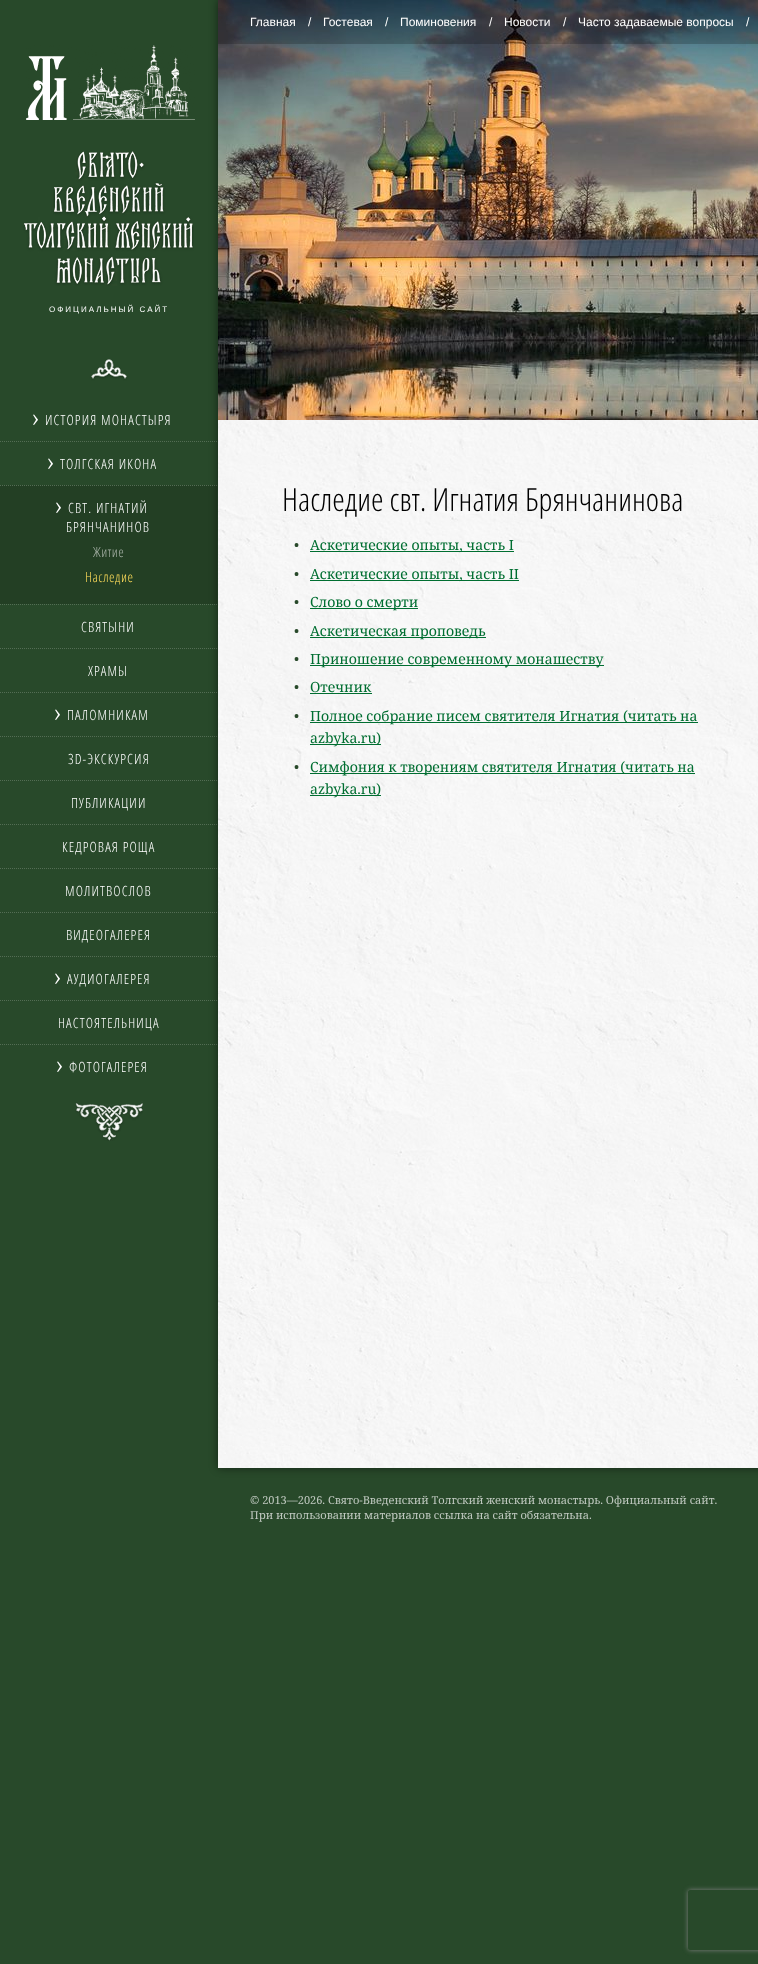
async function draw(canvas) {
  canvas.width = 758;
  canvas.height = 1964;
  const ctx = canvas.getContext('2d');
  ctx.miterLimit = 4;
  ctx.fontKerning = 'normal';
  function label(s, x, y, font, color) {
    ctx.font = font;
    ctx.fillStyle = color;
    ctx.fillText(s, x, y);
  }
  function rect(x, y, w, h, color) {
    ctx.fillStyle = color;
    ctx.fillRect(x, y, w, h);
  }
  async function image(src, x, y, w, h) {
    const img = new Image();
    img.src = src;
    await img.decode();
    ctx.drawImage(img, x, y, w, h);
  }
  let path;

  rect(0, 0, 758, 1964, '#28492a');
  await image('assets/img1.png', 26, 45, 169, 75);
  await image('assets/img2.png', 23, 151, 171, 135);
  ctx.letterSpacing = '2px';
  label('ОФИЦИАЛЬНЫЙ САЙТ', 49, 312, '8px Liberation Sans', '#fff');
  await image('assets/img3.png', 75, 359, 68, 782);
  ctx.letterSpacing = '1.1px';
  label('›', 32, 427, '300 28px Open Sans Condensed', '#fff');
  label('ИСТОРИЯ МОНАСТЫРЯ', 45, 425, '300 14px Open Sans Condensed', '#fff');
  path = new Path2D('M0 441.5H217');
  ctx.strokeStyle = '#536d54';
  ctx.setLineDash([1, 1]);
  ctx.stroke(path);
  label('›', 47, 471, '300 28px Open Sans Condensed', '#fff');
  label('ТОЛГСКАЯ ИКОНА', 60, 469, '300 14px Open Sans Condensed', '#fff');
  rect(0, 485, 217, 119, '#233f24');
  path = new Path2D('M0 485.5H217');
  ctx.stroke(path);
  label('›', 55, 515, '300 28px Open Sans Condensed', '#fff');
  label('СВТ. ИГНАТИЙ', 68, 513, '300 14px Open Sans Condensed', '#fff');
  label('БРЯНЧАНИНОВ', 66, 532, '300 14px Open Sans Condensed', '#fff');
  ctx.letterSpacing = '0.5px';
  label('Житие', 93, 557, '300 14px Open Sans Condensed', '#a7b2a7');
  label('Наследие', 85, 582, '300 14px Open Sans Condensed', '#ffdd5a');
  path = new Path2D('M0 604.5H217');
  ctx.stroke(path);
  ctx.letterSpacing = '1.1px';
  label('СВЯТЫНИ', 81, 632, '300 14px Open Sans Condensed', '#fff');
  path = new Path2D('M0 648.5H217');
  ctx.stroke(path);
  label('ХРАМЫ', 88, 676, '300 14px Open Sans Condensed', '#fff');
  path = new Path2D('M0 692.5H217');
  ctx.stroke(path);
  label('›', 54, 722, '300 28px Open Sans Condensed', '#fff');
  label('ПАЛОМНИКАМ', 67, 720, '300 14px Open Sans Condensed', '#fff');
  path = new Path2D('M0 736.5H217');
  ctx.stroke(path);
  label('3D-ЭКСКУРСИЯ', 68, 764, '300 14px Open Sans Condensed', '#fff');
  path = new Path2D('M0 780.5H217');
  ctx.stroke(path);
  label('ПУБЛИКАЦИИ', 71, 808, '300 14px Open Sans Condensed', '#fff');
  path = new Path2D('M0 824.5H217');
  ctx.stroke(path);
  label('КЕДРОВАЯ РОЩА', 62, 852, '300 14px Open Sans Condensed', '#fff');
  path = new Path2D('M0 868.5H217');
  ctx.stroke(path);
  label('МОЛИТВОСЛОВ', 65, 896, '300 14px Open Sans Condensed', '#fff');
  path = new Path2D('M0 912.5H217');
  ctx.stroke(path);
  label('ВИДЕОГАЛЕРЕЯ', 66, 940, '300 14px Open Sans Condensed', '#fff');
  path = new Path2D('M0 956.5H217');
  ctx.stroke(path);
  label('›', 54, 986, '300 28px Open Sans Condensed', '#fff');
  label('АУДИОГАЛЕРЕЯ', 67, 984, '300 14px Open Sans Condensed', '#fff');
  path = new Path2D('M0 1000.5H217');
  ctx.stroke(path);
  label('НАСТОЯТЕЛЬНИЦА', 58, 1028, '300 14px Open Sans Condensed', '#fff');
  path = new Path2D('M0 1044.5H217');
  ctx.stroke(path);
  label('›', 56, 1074, '300 28px Open Sans Condensed', '#fff');
  label('ФОТОГАЛЕРЕЯ', 69, 1072, '300 14px Open Sans Condensed', '#fff');
  ctx.fillStyle = '#00000080';
  ctx.filter = 'blur(4px)';
  ctx.beginPath();
  ctx.rect(218, 0, 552, 1468);
  ctx.fill();
  ctx.filter = 'none';
  await image('assets/img4.png', 218, 420, 540, 1048);
  await image('assets/img5.png', 218, 0, 540, 420);
  rect(218, 0, 540, 44, '#00000033');
  ctx.letterSpacing = '0px';
  label('Главная', 250, 26, '12px Liberation Sans', '#fff');
  label('/', 308, 26, '12px Liberation Sans', '#fff');
  label('Гостевая', 323, 26, '12px Liberation Sans', '#fff');
  label('/', 385, 26, '12px Liberation Sans', '#fff');
  label('Поминовения', 400, 26, '12px Liberation Sans', '#fff');
  label('/', 489, 26, '12px Liberation Sans', '#fff');
  label('Новости', 504, 26, '12px Liberation Sans', '#fff');
  label('/', 563, 26, '12px Liberation Sans', '#fff');
  label('Часто задаваемые вопросы', 578, 26, '12px Liberation Sans', '#fff');
  label('/', 746, 26, '12px Liberation Sans', '#fff');
  label('Наследие свт. Игнатия Брянчанинова', 282, 511, '300 32px Open Sans Condensed', '#000');
  label('•', 294, 550, '14px Noto Serif', '#28492a');
  rect(310, 551, 204, 1, '#006e31');
  label('Аскетические опыты, часть I', 310, 550, '14px Noto Serif', '#006e31');
  label('•', 294, 579, '14px Noto Serif', '#28492a');
  rect(310, 580, 209, 1, '#006e31');
  label('Аскетические опыты, часть II', 310, 579, '14px Noto Serif', '#006e31');
  label('•', 294, 607, '14px Noto Serif', '#28492a');
  rect(310, 608, 108, 1, '#006e31');
  label('Слово о смерти', 310, 607, '14px Noto Serif', '#006e31');
  label('•', 294, 636, '14px Noto Serif', '#28492a');
  rect(310, 637, 176, 1, '#006e31');
  label('Аскетическая проповедь', 310, 636, '14px Noto Serif', '#006e31');
  label('•', 294, 664, '14px Noto Serif', '#28492a');
  rect(310, 665, 294, 1, '#006e31');
  label('Приношение современному монашеству', 310, 664, '14px Noto Serif', '#006e31');
  label('•', 294, 692, '14px Noto Serif', '#28492a');
  label('Отечник', 310, 692, '14px Noto Serif', '#006e31');
  rect(310, 693, 62, 1, '#006e31');
  label('•', 294, 721, '14px Noto Serif', '#28492a');
  rect(310, 722, 388, 1, '#006e31');
  label('Полное собрание писем святителя Игнатия (читать на', 310, 721, '14px Noto Serif', '#006e31');
  rect(310, 744, 71, 1, '#006e31');
  label('azbyka.ru)', 310, 743, '14px Noto Serif', '#006e31');
  label('•', 294, 772, '14px Noto Serif', '#28492a');
  rect(310, 773, 385, 1, '#006e31');
  label('Симфония к творениям святителя Игнатия (читать на', 310, 772, '14px Noto Serif', '#006e31');
  rect(310, 795, 71, 1, '#006e31');
  label('azbyka.ru)', 310, 794, '14px Noto Serif', '#006e31');
  label('© 2013—2026. Свято-Введенский Толгский женский монастырь. Официальный сайт.', 250, 1504, '11px Noto Serif', '#bfc8bf');
  label('При использовании материалов ссылка на сайт обязательна.', 250, 1519, '11px Noto Serif', '#bfc8bf');
  ctx.save();
  path = new Path2D('M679 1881H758V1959H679ZM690 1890H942C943 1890 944 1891 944 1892V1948C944 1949 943 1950 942 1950H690C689 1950 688 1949 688 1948V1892C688 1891 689 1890 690 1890Z');
  ctx.clip(path, 'evenodd');
  ctx.fillStyle = '#808080';
  ctx.filter = 'blur(2.5px)';
  ctx.beginPath();
  ctx.roundRect(688, 1890, 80, 60, 2);
  ctx.fill();
  ctx.filter = 'none';
  ctx.restore();
}

draw(document.querySelector('canvas'));
